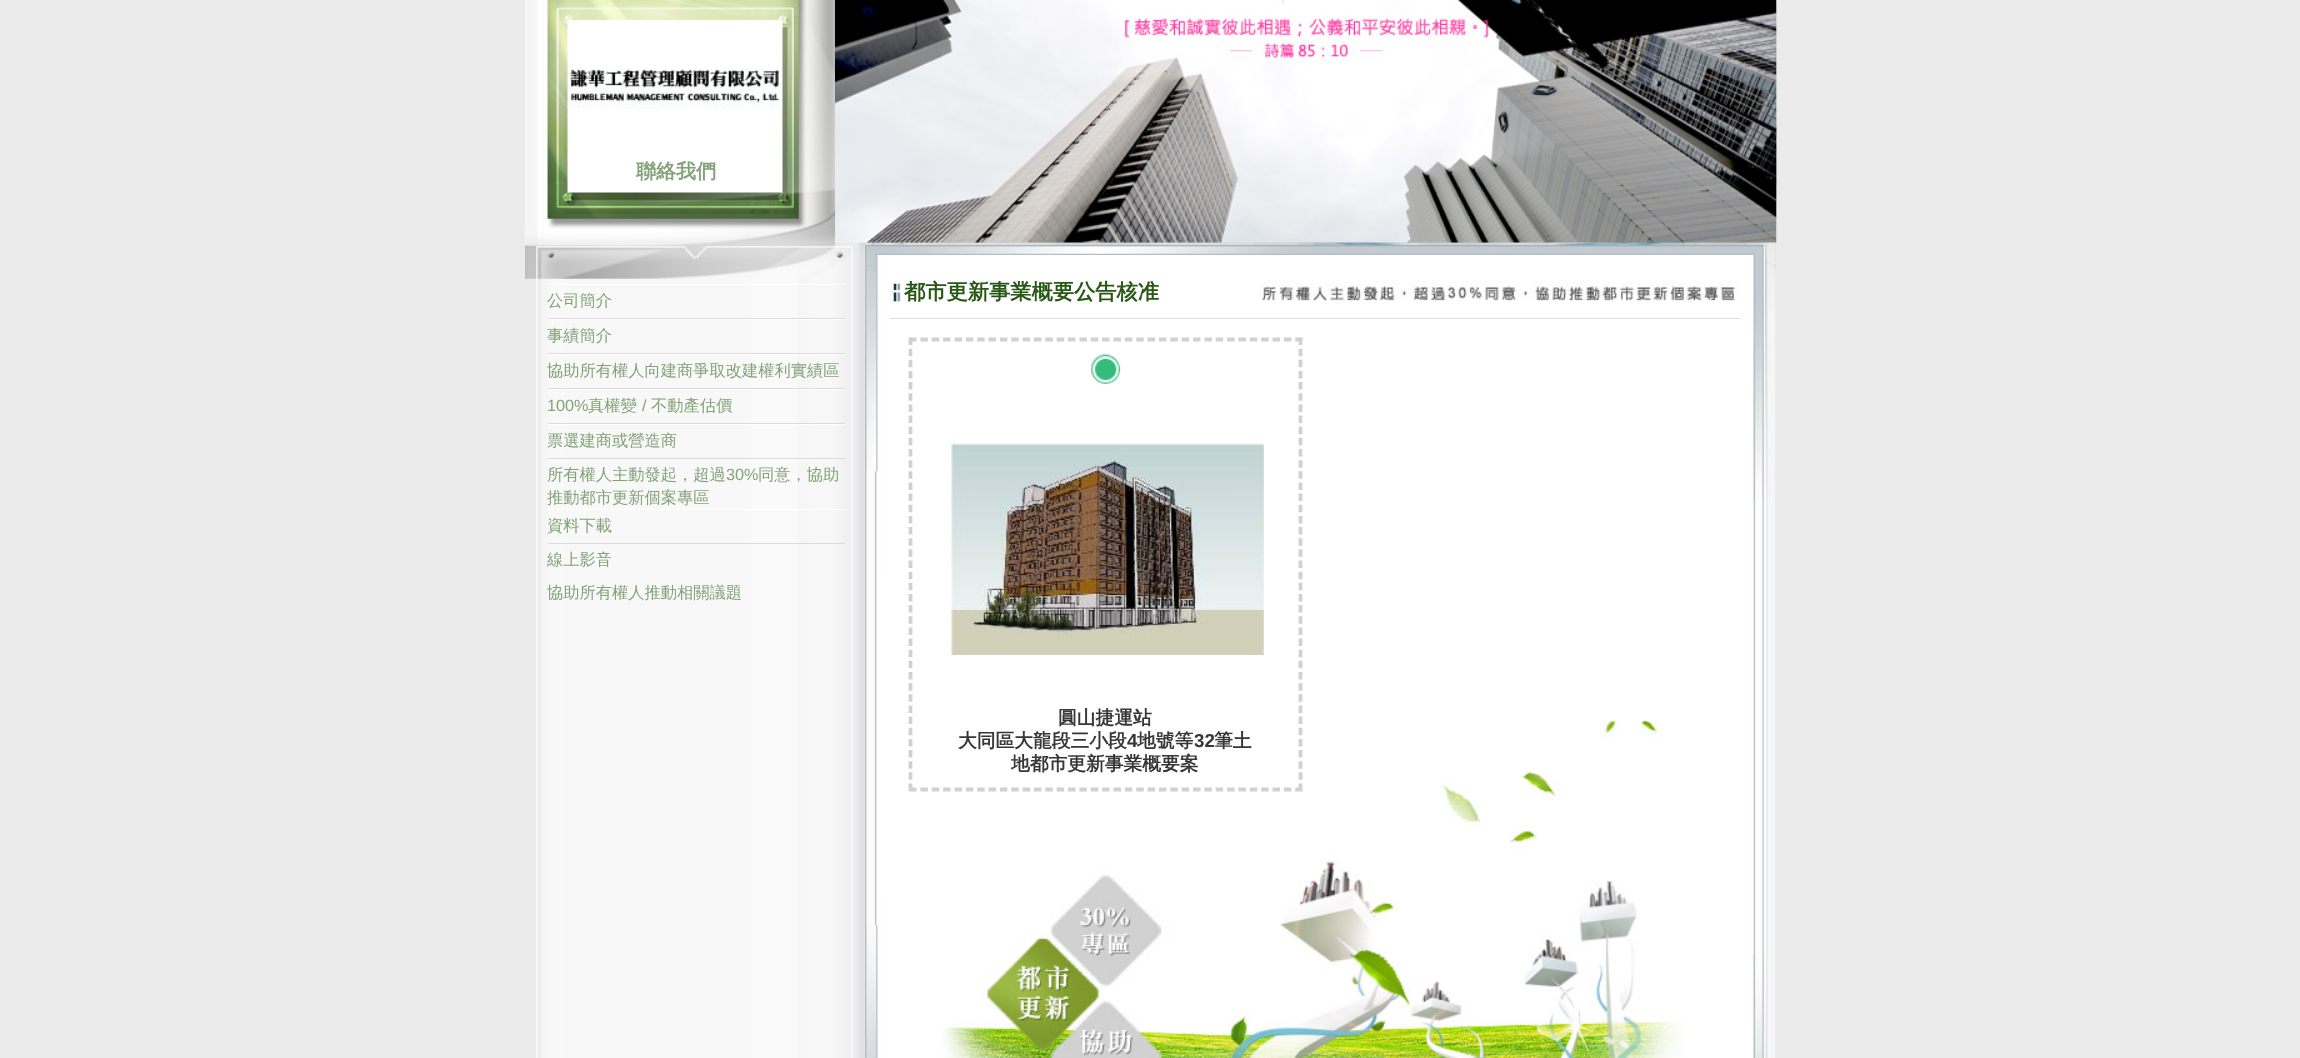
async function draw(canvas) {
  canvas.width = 2300;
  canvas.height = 1058;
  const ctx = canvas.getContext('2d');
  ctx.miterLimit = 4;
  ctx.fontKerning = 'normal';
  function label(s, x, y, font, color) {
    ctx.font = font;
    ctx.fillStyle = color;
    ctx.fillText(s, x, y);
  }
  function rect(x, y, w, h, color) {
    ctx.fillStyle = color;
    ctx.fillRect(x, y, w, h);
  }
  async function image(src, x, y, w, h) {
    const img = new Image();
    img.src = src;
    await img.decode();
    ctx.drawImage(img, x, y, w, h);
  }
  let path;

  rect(0, 0, 2300, 1058, '#ebebeb');
  rect(567, 19, 216, 174, '#fff');
  await image('assets/img2.png', 525, 0, 340, 255);
  await image('assets/img4.png', 865, 0, 912, 255);
  await image('assets/img1.png', 835, 0, 942, 243);
  await image('assets/img3.png', 569, 69, 210, 40);
  label('聯絡我們', 636, 178, 'bold 20px WenQuanYi Zen Hei', '#84a279');
  await image('assets/img5.png', 536, 255, 329, 803);
  await image('assets/img6.png', 525, 255, 322, 24);
  rect(548, 284, 297, 1, '#fff');
  rect(548, 318, 297, 1, '#dcdada');
  label('公司簡介', 547, 306, '500 16.25px WenQuanYi Zen Hei', '#84a279');
  rect(548, 319, 297, 1, '#fff');
  rect(548, 353, 297, 1, '#dcdada');
  label('事績簡介', 547, 341, '500 16.25px WenQuanYi Zen Hei', '#84a279');
  rect(548, 354, 297, 1, '#fff');
  rect(548, 388, 297, 1, '#dcdada');
  label('協助所有權人向建商爭取改建權利實績區', 547, 376, '500 16.25px WenQuanYi Zen Hei', '#84a279');
  rect(548, 389, 297, 1, '#fff');
  rect(548, 423, 297, 1, '#dcdada');
  label('100%', 547, 411, '16.25px Liberation Sans', '#84a279');
  label('真權變', 588, 411, '500 16.25px WenQuanYi Zen Hei', '#84a279');
  label('/', 642, 411, '16.25px Liberation Sans', '#84a279');
  label('不動產估價', 651, 411, '500 16.25px WenQuanYi Zen Hei', '#84a279');
  rect(548, 424, 297, 1, '#fff');
  rect(548, 458, 297, 1, '#dcdada');
  label('票選建商或營造商', 547, 446, '500 16.25px WenQuanYi Zen Hei', '#84a279');
  label('所有權人主動發起，超過', 547, 480, '500 16.25px WenQuanYi Zen Hei', '#84a279');
  label('30%', 726, 480, '16.25px Liberation Sans', '#84a279');
  label('同意，協助', 758, 480, '500 16.25px WenQuanYi Zen Hei', '#84a279');
  label('推動都市更新個案專區', 547, 503, '500 16.25px WenQuanYi Zen Hei', '#84a279');
  rect(548, 509, 297, 1, '#fff');
  rect(548, 543, 297, 1, '#dcdada');
  label('資料下載', 547, 531, '500 16.25px WenQuanYi Zen Hei', '#84a279');
  label('線上影音', 547, 565, '500 16.25px WenQuanYi Zen Hei', '#84a279');
  label('協助所有權人推動相關議題', 547, 598, '500 16.25px WenQuanYi Zen Hei', '#84a279');
  await image('assets/img7.png', 865, 255, 910, 803);
  await image('assets/img8.png', 865, 255, 13, 217);
  await image('assets/img9.png', 865, 925, 13, 133);
  await image('assets/img10.png', 1753, 255, 23, 245);
  await image('assets/img11.png', 1753, 954, 14, 104);
  await image('assets/img12.png', 890, 280, 850, 25);
  rect(890, 318, 850, 1, '#dcdcdc');
  label('都市更新事業概要公告核准', 904, 299, 'bold 21.25px WenQuanYi Zen Hei', '#285815');
  await image('assets/img13.png', 941, 720, 743, 338);
  await image('assets/img14.png', 1091, 353, 30, 31);
  path = new Path2D('M909 339.5H1302.5');
  ctx.strokeStyle = '#d1d1d1';
  ctx.lineWidth = 3.8;
  ctx.setLineDash([7.5, 3.86]);
  ctx.stroke(path);
  path = new Path2D('M1300.5 337.5V791');
  ctx.setLineDash([7.5, 3.65]);
  ctx.stroke(path);
  path = new Path2D('M909 789.5H1302.5');
  ctx.setLineDash([7.5, 3.86]);
  ctx.stroke(path);
  path = new Path2D('M910.5 337.5V791');
  ctx.setLineDash([7.5, 3.65]);
  ctx.stroke(path);
  await image('assets/img15.png', 951, 443, 313, 212);
  label('圓山捷運站', 1058, 724, 'bold 18.75px WenQuanYi Zen Hei', '#373737');
  label('大同區大龍段三小段', 958, 747, 'bold 18.75px WenQuanYi Zen Hei', '#373737');
  label('4', 1127, 747, 'bold 18.75px Liberation Sans', '#373737');
  label('地號等', 1137, 747, 'bold 18.75px WenQuanYi Zen Hei', '#373737');
  label('32', 1194, 747, 'bold 18.75px Liberation Sans', '#373737');
  label('筆土', 1214, 747, 'bold 18.75px WenQuanYi Zen Hei', '#373737');
  label('地都市更新事業概要案', 1011, 770, 'bold 18.75px WenQuanYi Zen Hei', '#373737');
}

draw(document.querySelector('canvas'));
